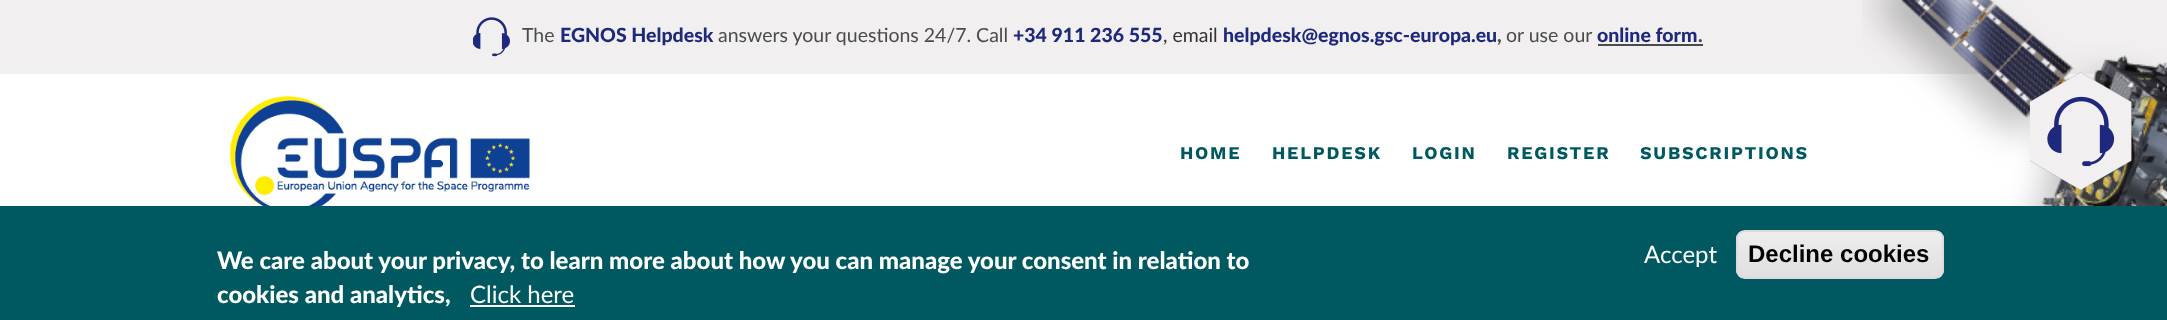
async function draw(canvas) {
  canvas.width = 2167;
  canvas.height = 320;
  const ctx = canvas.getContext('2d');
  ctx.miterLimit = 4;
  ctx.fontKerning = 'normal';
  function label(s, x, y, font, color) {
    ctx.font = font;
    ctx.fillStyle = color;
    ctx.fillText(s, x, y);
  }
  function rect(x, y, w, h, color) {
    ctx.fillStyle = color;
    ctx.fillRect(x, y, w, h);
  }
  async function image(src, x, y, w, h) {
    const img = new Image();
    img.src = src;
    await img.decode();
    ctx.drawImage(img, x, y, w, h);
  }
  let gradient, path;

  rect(0, 0, 2167, 320, '#fff');
  rect(0, 0, 2167, 74, '#f1efef');
  await image('assets/img1.png', 473, 17, 37, 40);
  label('The', 522, 42, '19.5px Lato', '#4b4b4c');
  label('EGNOS Helpdesk', 560, 42, '900 19.5px Lato', '#1e287d');
  label('answers your questions 24/7. Call', 718, 42, '19.5px Lato', '#4b4b4c');
  label('+34 911 236 555', 1013, 42, '900 19.5px Lato', '#1e287d');
  label(', email', 1163, 42, '19.5px Lato', '#333');
  label('helpdesk@egnos.gsc-europa.eu', 1223, 42, '900 19.5px Lato', '#1e287d');
  label(',', 1497, 42, '900 19.5px Lato', '#4b4b4c');
  label('or use our', 1506, 42, '19.5px Lato', '#4b4b4c');
  label('online form', 1597, 42, '900 19.5px Lato', '#1e287d');
  label('.', 1698, 42, '900 19.5px Lato', '#4b4b4c');
  rect(1598, 44, 105, 2, '#4b4b4c');
  await image('assets/img2.png', 1862, 0, 305, 206);
  await image('assets/img3.png', 229, 96, 301, 110);
  ctx.letterSpacing = '1.75px';
  label('HOME', 1180, 159, 'bold 18px Work Sans', '#005960');
  label('HELPDESK', 1272, 159, 'bold 18px Work Sans', '#005960');
  label('LOGIN', 1412, 159, 'bold 18px Work Sans', '#005960');
  label('REGISTER', 1507, 159, 'bold 18px Work Sans', '#005960');
  label('SUBSCRIPTIONS', 1640, 159, 'bold 18px Work Sans', '#005960');
  await image('assets/img4.png', 2030, 72, 102, 118);
  rect(0, 206, 2167, 114, '#005960');
  ctx.letterSpacing = '0px';
  label('We care about your privacy, to learn more about how you can manage your consent in relation to', 217, 269, '900 24px Lato', '#fff');
  label('cookies and analytics,', 217, 303, '900 24px Lato', '#fff');
  label('Click here', 470, 303, '24px Lato', '#fff');
  rect(470, 305, 105, 2, '#fff');
  label('Accept', 1644, 263, '24px Lato', '#fff');
  ctx.save();
  ctx.beginPath();
  ctx.roundRect(1736, 230, 208, 49, 9);
  ctx.clip();
  gradient = ctx.createLinearGradient(1840, 231, 1840, 278);
  gradient.addColorStop(0.05, '#ededed');
  gradient.addColorStop(1, '#dfdfdf');
  ctx.fillStyle = gradient;
  ctx.fillRect(1736, 231, 208, 47);
  ctx.restore();
  path = new Path2D('M1744 232H1935C1939 232 1942 236 1942 240V272V275C1942 273 1943 272 1943 270V239C1943 235 1939 231 1935 231H1745C1741 231 1737 235 1737 239V240C1737 236 1740 232 1744 232Z');
  ctx.fill(path);
  ctx.beginPath();
  ctx.roundRect(1737, 231, 206, 47, 8);
  ctx.strokeStyle = '#dcdcdc';
  ctx.lineWidth = 2;
  ctx.stroke();
  label('Decline cookies', 1748, 262, 'bold 24px Liberation Sans', '#000');
}

draw(document.querySelector('canvas'));
